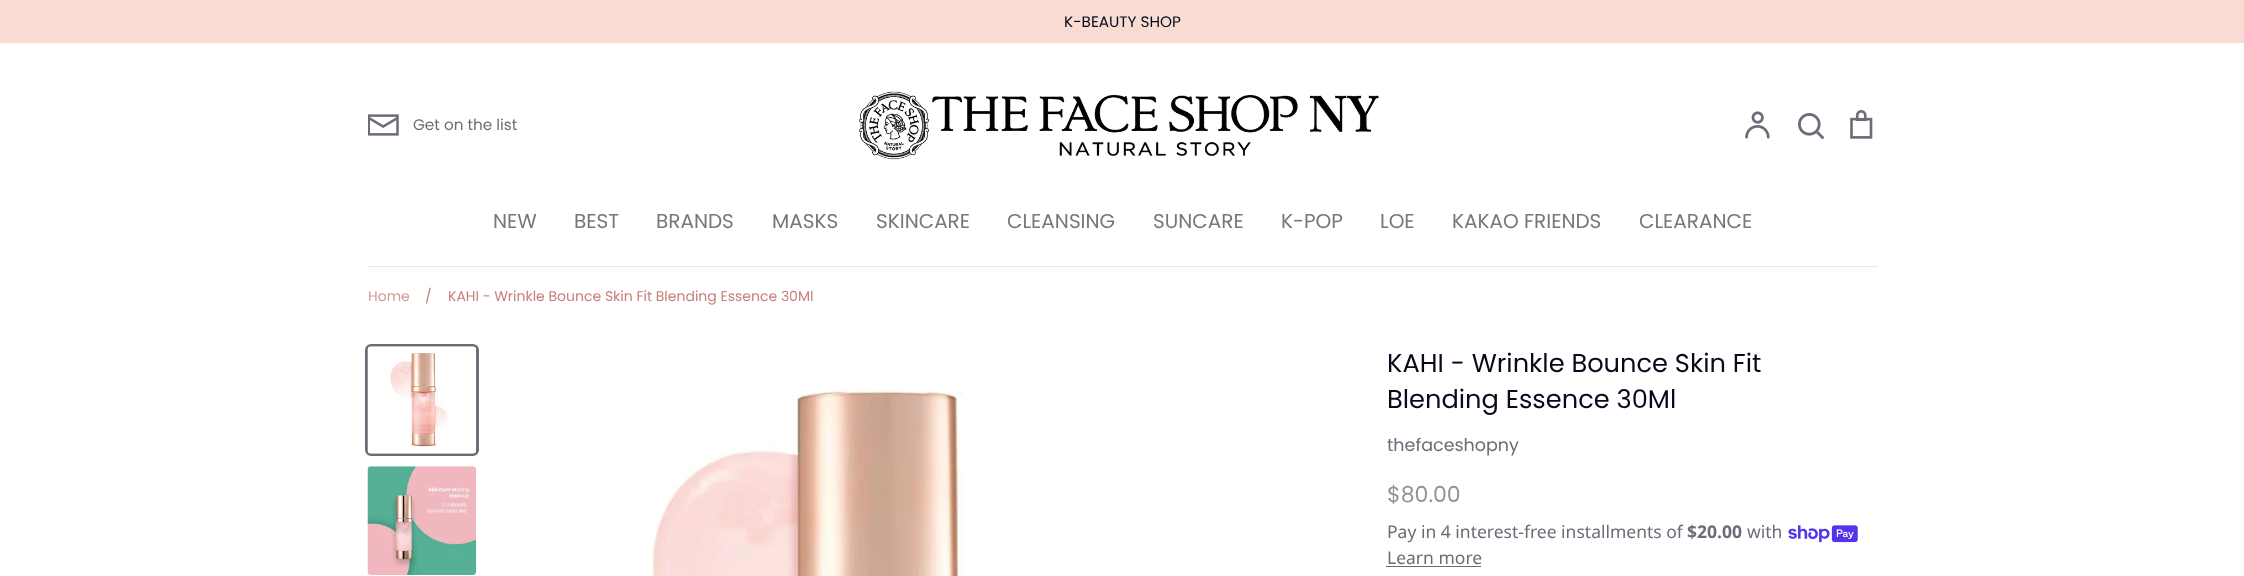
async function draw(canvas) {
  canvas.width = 2244;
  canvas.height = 576;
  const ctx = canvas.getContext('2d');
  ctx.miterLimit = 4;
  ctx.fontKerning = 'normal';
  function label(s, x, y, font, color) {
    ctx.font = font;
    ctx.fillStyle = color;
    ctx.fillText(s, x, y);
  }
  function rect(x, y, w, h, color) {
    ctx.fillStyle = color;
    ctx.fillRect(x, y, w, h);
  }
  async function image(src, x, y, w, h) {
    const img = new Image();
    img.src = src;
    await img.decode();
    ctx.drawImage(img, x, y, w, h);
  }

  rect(0, 0, 2244, 576, '#fff');
  rect(0, 0, 2244, 43, '#f8dbd3');
  label('K-BEAUTY SHOP', 1064, 27, '15.25px Poppins', '#080a1c');
  await image('assets/img1.png', 368, 114, 31, 22);
  label('Get on the list', 413, 130, '15.25px Poppins', '#6b6c77');
  await image('assets/img2.png', 859, 91, 520, 69);
  await image('assets/img3.png', 1745, 111, 25, 28);
  await image('assets/img4.png', 1798, 113, 27, 27);
  await image('assets/img5.png', 1850, 110, 23, 29);
  rect(368, 266, 1510, 1, '#e9e9eb');
  label('NEW', 493, 228, '20px Poppins', '#777');
  label('BEST', 574, 228, '20px Poppins', '#777');
  label('BRANDS', 656, 228, '20px Poppins', '#777');
  label('MASKS', 772, 228, '20px Poppins', '#777');
  label('SKINCARE', 876, 228, '20px Poppins', '#777');
  label('CLEANSING', 1007, 228, '20px Poppins', '#777');
  label('SUNCARE', 1153, 228, '20px Poppins', '#777');
  label('K-POP', 1281, 228, '20px Poppins', '#777');
  label('LOE', 1380, 228, '20px Poppins', '#777');
  label('KAKAO FRIENDS', 1452, 228, '20px Poppins', '#777');
  label('CLEARANCE', 1639, 228, '20px Poppins', '#777');
  label('Home', 368, 301, '14px Poppins', '#d29895');
  label('/', 425, 301, '14px Poppins', '#c77e7a');
  label('KAHI - Wrinkle Bounce Skin Fit Blending Essence 30Ml', 448, 301, '14px Poppins', '#c77e7a');
  ctx.beginPath();
  ctx.roundRect(366.5, 345.5, 111, 109, 4.5);
  ctx.strokeStyle = '#6b6c77';
  ctx.lineWidth = 3;
  ctx.stroke();
  await image('assets/img6.png', 367, 346, 110, 108);
  await image('assets/img7.png', 367, 466, 110, 109);
  await image('assets/img8.png', 652, 390, 311, 186);
  label('KAHI - Wrinkle Bounce Skin Fit', 1387, 372, '25.7px Poppins', '#080a1c');
  label('Blending Essence 30Ml', 1387, 408, '25.7px Poppins', '#080a1c');
  label('thefaceshopny', 1387, 451, '17.5px Poppins', '#6b6c77');
  label('$80.00', 1387, 502, '22px Poppins', '#939393');
  label('Pay in 4 interest-free installments of', 1387, 538, '17.5px Noto Sans', '#6b6c77');
  label('$20.00', 1687, 538, 'bold 17.5px Noto Sans', '#6b6c77');
  label('with', 1747, 538, '17.5px Noto Sans', '#6b6c77');
  await image('assets/img9.png', 1788, 525, 70, 18);
  label('Learn more', 1387, 564, '17.5px Noto Sans', '#6b6c77');
  rect(1386, 566, 95, 1, '#6b6c77');
}

draw(document.querySelector('canvas'));
